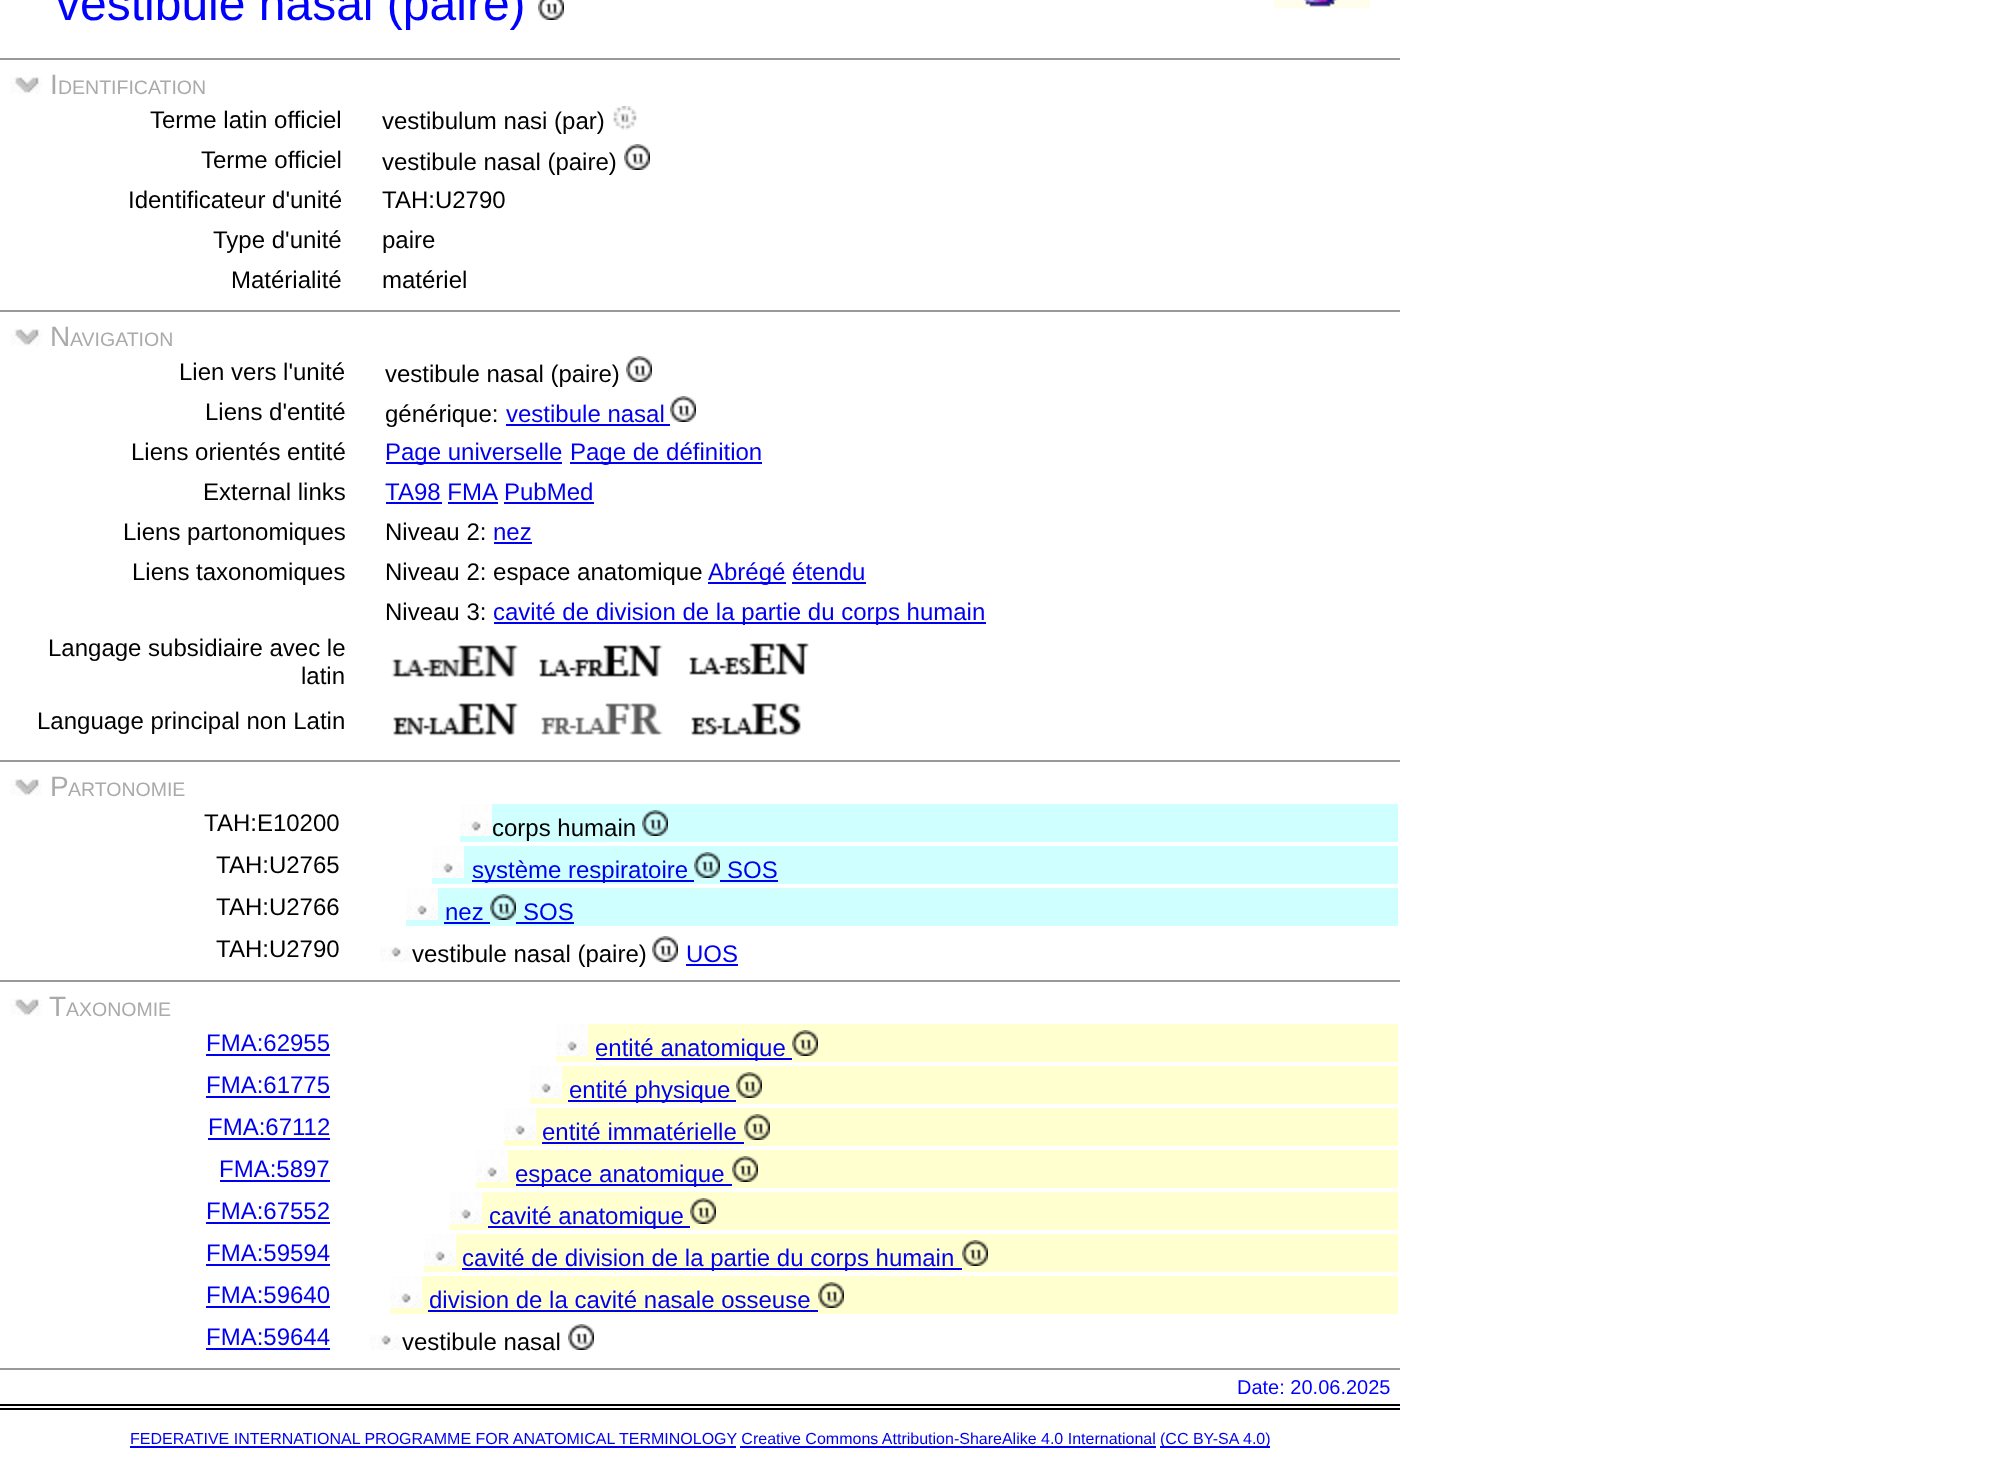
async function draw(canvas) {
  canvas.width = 1994;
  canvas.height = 1463;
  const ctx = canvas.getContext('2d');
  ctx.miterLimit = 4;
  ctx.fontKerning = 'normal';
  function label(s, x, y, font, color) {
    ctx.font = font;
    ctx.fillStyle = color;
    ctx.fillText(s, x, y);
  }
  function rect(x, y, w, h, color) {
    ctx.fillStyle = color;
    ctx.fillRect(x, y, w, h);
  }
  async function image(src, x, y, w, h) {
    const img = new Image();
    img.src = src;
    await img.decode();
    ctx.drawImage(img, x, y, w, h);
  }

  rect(0, 0, 1994, 1463, '#fff');
  label('vestibule nasal (paire)', 56, 20, '48px Liberation Sans', '#00f');
  await image('assets/img1.png', 538, 0, 26, 20);
  await image('assets/img2.png', 1274, 0, 96, 8);
  rect(0, 58, 1400, 2, '#999');
  await image('assets/img3.png', 10, 77, 32, 17);
  label('I', 50, 94, '28px Liberation Sans', '#aaa');
  label('DENTIFICATION', 58, 94, '19.5px Liberation Sans', '#aaa');
  label('Terme latin officiel', 150, 128, '24px Liberation Sans', '#000');
  label('vestibulum nasi (par)', 382, 129, '24px Liberation Sans', '#000');
  await image('assets/img4.png', 613, 106, 24, 24);
  label('Terme officiel', 201, 168, '24px Liberation Sans', '#000');
  label('vestibule nasal (paire)', 382, 170, '24px Liberation Sans', '#000');
  await image('assets/img5.png', 624, 144, 26, 26);
  label('Identificateur d\'unité', 128, 208, '24px Liberation Sans', '#000');
  label('TAH:U2790', 382, 208, '24px Liberation Sans', '#000');
  label('Type d\'unité', 213, 248, '24px Liberation Sans', '#000');
  label('paire', 382, 248, '24px Liberation Sans', '#000');
  label('Matérialité', 231, 288, '24px Liberation Sans', '#000');
  label('matériel', 382, 288, '24px Liberation Sans', '#000');
  rect(0, 310, 1400, 2, '#999');
  await image('assets/img3.png', 10, 329, 32, 17);
  label('N', 50, 346, '28px Liberation Sans', '#aaa');
  label('AVIGATION', 70, 346, '19.5px Liberation Sans', '#aaa');
  label('Lien vers l\'unité', 179, 380, '24px Liberation Sans', '#000');
  label('vestibule nasal (paire)', 385, 382, '24px Liberation Sans', '#000');
  await image('assets/img5.png', 626, 356, 26, 26);
  label('Liens d\'entité', 205, 420, '24px Liberation Sans', '#000');
  label('générique:', 385, 422, '24px Liberation Sans', '#000');
  label('vestibule nasal', 506, 422, '24px Liberation Sans', '#00e');
  rect(506, 424, 164, 2, '#00e');
  await image('assets/img5.png', 670, 396, 26, 26);
  label('Liens orientés entité', 131, 460, '24px Liberation Sans', '#000');
  rect(386, 462, 176, 2, '#00e');
  label('Page universelle', 385, 460, '24px Liberation Sans', '#00e');
  rect(570, 462, 192, 2, '#00e');
  label('Page de définition', 570, 460, '24px Liberation Sans', '#00e');
  label('External links', 203, 500, '24px Liberation Sans', '#000');
  label('TA98 FMA', 385, 500, '24px Liberation Sans', '#00e');
  rect(386, 502, 56, 2, '#00e');
  label('PubMed', 504, 500, '24px Liberation Sans', '#00e');
  rect(504, 502, 90, 2, '#00e');
  rect(448, 502, 50, 2, '#00e');
  label('Liens partonomiques', 123, 540, '24px Liberation Sans', '#000');
  label('Niveau 2:', 385, 540, '24px Liberation Sans', '#000');
  label('nez', 493, 540, '24px Liberation Sans', '#00e');
  rect(494, 542, 38, 2, '#00e');
  label('Liens taxonomiques', 132, 580, '24px Liberation Sans', '#000');
  label('Niveau 2: espace anatomique', 385, 580, '24px Liberation Sans', '#000');
  rect(708, 582, 78, 2, '#00e');
  label('Abrégé étendu', 708, 580, '24px Liberation Sans', '#00e');
  rect(792, 582, 74, 2, '#00e');
  label('Niveau 3:', 385, 620, '24px Liberation Sans', '#000');
  rect(494, 622, 492, 2, '#00e');
  label('cavité de division de la partie du corps humain', 493, 620, '24px Liberation Sans', '#00e');
  label('Langage subsidiaire avec le', 48, 656, '24px Liberation Sans', '#000');
  label('latin', 301, 684, '24px Liberation Sans', '#000');
  await image('assets/img6.png', 391, 645, 128, 33);
  await image('assets/img7.png', 539, 645, 124, 32);
  await image('assets/img8.png', 689, 643, 120, 32);
  label('Language principal non Latin', 37, 729, '24px Liberation Sans', '#000');
  await image('assets/img9.png', 393, 703, 126, 33);
  await image('assets/img10.png', 541, 703, 122, 32);
  await image('assets/img11.png', 691, 703, 110, 33);
  rect(0, 760, 1400, 2, '#999');
  await image('assets/img3.png', 10, 779, 32, 17);
  label('P', 50, 796, '28px Liberation Sans', '#aaa');
  label('ARTONOMIE', 68, 796, '19.5px Liberation Sans', '#aaa');
  label('TAH:E10200', 204, 831, '24px Liberation Sans', '#000');
  rect(460, 804, 938, 38, '#cfffff');
  await image('assets/img12.png', 460, 804, 32, 32);
  label('corps humain', 492, 836, '24px Liberation Sans', '#000');
  await image('assets/img13.png', 642, 810, 26, 26);
  label('TAH:U2765', 216, 873, '24px Liberation Sans', '#000');
  rect(432, 846, 966, 38, '#cfffff');
  await image('assets/img12.png', 432, 846, 32, 32);
  rect(472, 880, 222, 2, '#00e');
  label('système respiratoire', 472, 878, '24px Liberation Sans', '#00e');
  rect(720, 880, 58, 2, '#00e');
  await image('assets/img13.png', 694, 852, 26, 26);
  label('SOS', 727, 878, '24px Liberation Sans', '#00e');
  label('TAH:U2766', 216, 915, '24px Liberation Sans', '#000');
  rect(406, 888, 992, 38, '#cfffff');
  await image('assets/img12.png', 406, 888, 32, 32);
  label('nez', 445, 920, '24px Liberation Sans', '#00e');
  rect(444, 922, 46, 2, '#00e');
  rect(516, 922, 58, 2, '#00e');
  await image('assets/img13.png', 490, 894, 26, 26);
  label('SOS', 523, 920, '24px Liberation Sans', '#00e');
  label('TAH:U2790', 216, 957, '24px Liberation Sans', '#000');
  await image('assets/img14.png', 380, 947, 32, 15);
  label('vestibule nasal (paire)', 412, 962, '24px Liberation Sans', '#000');
  await image('assets/img5.png', 652, 936, 26, 26);
  label('UOS', 686, 962, '24px Liberation Sans', '#00e');
  rect(686, 964, 52, 2, '#00e');
  rect(0, 980, 1400, 2, '#999');
  await image('assets/img3.png', 10, 999, 32, 17);
  label('T', 49, 1016, '28px Liberation Sans', '#aaa');
  label('AXONOMIE', 66, 1016, '19.5px Liberation Sans', '#aaa');
  label('FMA:62955', 206, 1051, '24px Liberation Sans', '#00e');
  rect(206, 1054, 124, 2, '#00e');
  rect(556, 1024, 842, 38, '#ffffd0');
  await image('assets/img12.png', 556, 1024, 32, 32);
  rect(596, 1058, 196, 2, '#00e');
  label('entité anatomique', 595, 1056, '24px Liberation Sans', '#00e');
  await image('assets/img15.png', 792, 1030, 26, 26);
  label('FMA:61775', 206, 1093, '24px Liberation Sans', '#00e');
  rect(206, 1096, 124, 2, '#00e');
  rect(530, 1066, 868, 38, '#ffffd0');
  await image('assets/img12.png', 530, 1066, 32, 32);
  rect(568, 1100, 168, 2, '#00e');
  label('entité physique', 569, 1098, '24px Liberation Sans', '#00e');
  await image('assets/img15.png', 736, 1072, 26, 26);
  label('FMA:67112', 208, 1135, '24px Liberation Sans', '#00e');
  rect(208, 1138, 122, 2, '#00e');
  rect(504, 1108, 894, 38, '#ffffd0');
  await image('assets/img12.png', 504, 1108, 32, 32);
  label('entité immatérielle', 542, 1140, '24px Liberation Sans', '#00e');
  rect(542, 1142, 202, 2, '#00e');
  await image('assets/img15.png', 744, 1114, 26, 26);
  label('FMA:5897', 219, 1177, '24px Liberation Sans', '#00e');
  rect(220, 1180, 110, 2, '#00e');
  rect(476, 1150, 922, 38, '#ffffd0');
  await image('assets/img12.png', 476, 1150, 32, 32);
  rect(516, 1184, 216, 2, '#00e');
  label('espace anatomique', 515, 1182, '24px Liberation Sans', '#00e');
  await image('assets/img15.png', 732, 1156, 26, 26);
  label('FMA:67552', 206, 1219, '24px Liberation Sans', '#00e');
  rect(206, 1222, 124, 2, '#00e');
  rect(450, 1192, 948, 38, '#ffffd0');
  await image('assets/img12.png', 450, 1192, 32, 32);
  rect(488, 1226, 202, 2, '#00e');
  label('cavité anatomique', 489, 1224, '24px Liberation Sans', '#00e');
  await image('assets/img15.png', 690, 1198, 26, 26);
  label('FMA:59594', 206, 1261, '24px Liberation Sans', '#00e');
  rect(206, 1264, 124, 2, '#00e');
  rect(424, 1234, 974, 38, '#ffffd0');
  await image('assets/img12.png', 424, 1234, 32, 32);
  rect(462, 1268, 500, 2, '#00e');
  label('cavité de division de la partie du corps humain', 462, 1266, '24px Liberation Sans', '#00e');
  await image('assets/img15.png', 962, 1240, 26, 26);
  label('FMA:59640', 206, 1303, '24px Liberation Sans', '#00e');
  rect(206, 1306, 124, 2, '#00e');
  rect(390, 1276, 1008, 38, '#ffffd0');
  await image('assets/img12.png', 390, 1276, 32, 32);
  label('division de la cavité nasale osseuse', 429, 1308, '24px Liberation Sans', '#00e');
  rect(428, 1310, 390, 2, '#00e');
  await image('assets/img15.png', 818, 1282, 26, 26);
  label('FMA:59644', 206, 1345, '24px Liberation Sans', '#00e');
  rect(206, 1348, 124, 2, '#00e');
  await image('assets/img14.png', 370, 1335, 32, 15);
  label('vestibule nasal', 402, 1350, '24px Liberation Sans', '#000');
  await image('assets/img5.png', 568, 1324, 26, 26);
  rect(0, 1368, 1400, 2, '#999');
  rect(0, 1404, 1400, 2, '#000');
  rect(0, 1408, 1400, 2, '#000');
  label('Date: 20.06.2025', 1237, 1394, '20px Liberation Sans', '#00f');
  label('FEDERATIVE INTERNATIONAL PROGRAMME FOR ANATOMICAL TERMINOLOGY Creative Commons Attribution-ShareAlike 4.0 International', 130, 1444, '16px Liberation Sans', '#00e');
  rect(130, 1446, 606, 2, '#00e');
  rect(1160, 1446, 110, 2, '#00e');
  label('(CC BY-SA 4.0)', 1160, 1444, '16px Liberation Sans', '#00e');
  rect(740, 1446, 416, 2, '#00e');
}

draw(document.querySelector('canvas'));
